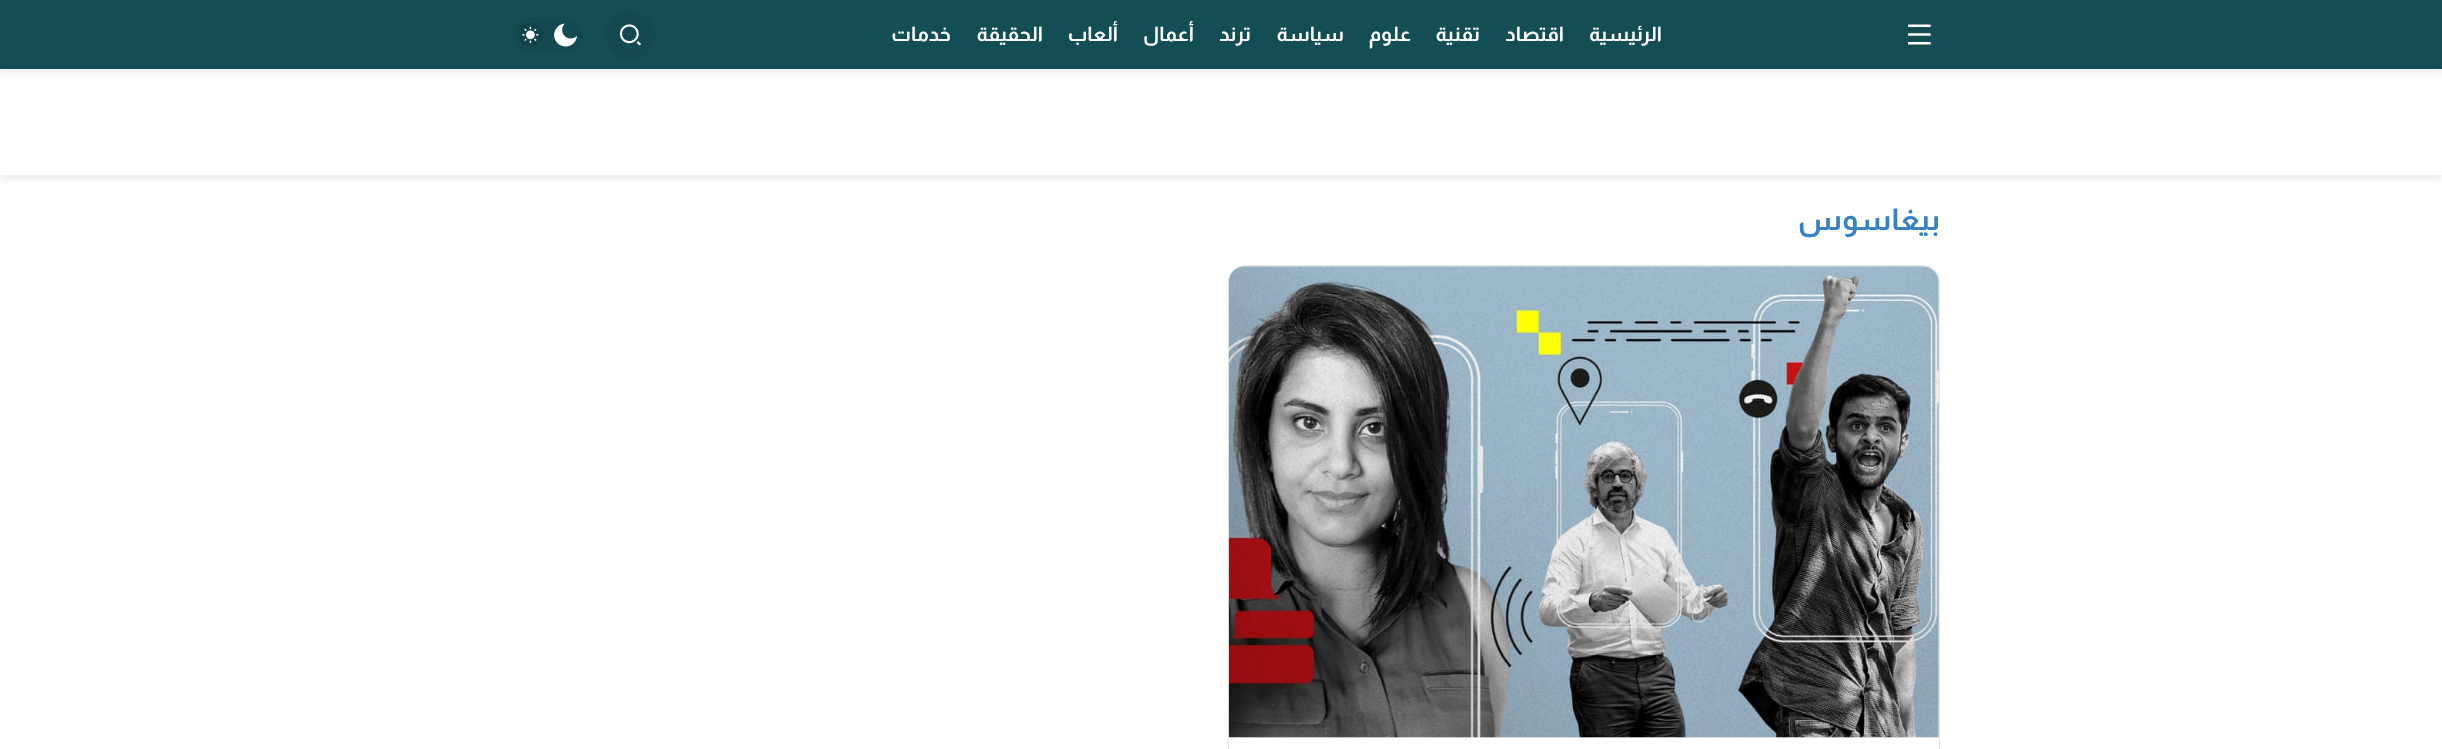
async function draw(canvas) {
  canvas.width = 2442;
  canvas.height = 749;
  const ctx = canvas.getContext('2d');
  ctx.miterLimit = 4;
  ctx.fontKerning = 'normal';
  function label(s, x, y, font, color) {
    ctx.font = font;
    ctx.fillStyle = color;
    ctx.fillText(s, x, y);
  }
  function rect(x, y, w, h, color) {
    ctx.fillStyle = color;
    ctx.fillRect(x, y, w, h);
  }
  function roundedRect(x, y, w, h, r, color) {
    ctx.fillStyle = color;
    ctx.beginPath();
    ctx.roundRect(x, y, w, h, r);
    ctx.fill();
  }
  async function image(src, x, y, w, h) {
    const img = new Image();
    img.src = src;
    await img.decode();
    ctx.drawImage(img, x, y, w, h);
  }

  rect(0, 0, 2442, 749, '#fff');
  ctx.fillStyle = '#00000012';
  ctx.filter = 'blur(4.5px)';
  ctx.beginPath();
  ctx.rect(-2, 0, 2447, 74);
  ctx.fill();
  ctx.filter = 'none';
  ctx.save();
  ctx.beginPath();
  ctx.rect(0, 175, 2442, 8);
  ctx.clip();
  ctx.filter = 'blur(4.5px)';
  ctx.beginPath();
  ctx.rect(-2, 69, 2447, 111);
  ctx.fill();
  ctx.filter = 'none';
  ctx.restore();
  rect(0, 0, 2442, 69, '#144e55');
  await image('assets/img1.png', 1908, 24, 23, 21);
  ctx.direction = 'rtl';
  label('الرئيسية', 1662, 41, 'bold 20px Almarai', '#fff');
  label('اقتصاد', 1564, 41, 'bold 20px Almarai', '#fff');
  label('تقنية', 1480, 41, 'bold 20px Almarai', '#fff');
  label('علوم', 1411, 41, 'bold 20px Almarai', '#fff');
  label('سياسة', 1344, 41, 'bold 20px Almarai', '#fff');
  label('ترند', 1251, 41, 'bold 20px Almarai', '#fff');
  label('أعمال', 1194, 41, 'bold 20px Almarai', '#fff');
  label('ألعاب', 1118, 41, 'bold 20px Almarai', '#fff');
  label('الحقيقة', 1043, 41, 'bold 20px Almarai', '#fff');
  label('خدمات', 951, 41, 'bold 20px Almarai', '#fff');
  ctx.fillStyle = '#134a51';
  ctx.beginPath();
  ctx.arc(630, 35, 25, 0, 2 * Math.PI);
  ctx.fill();
  await image('assets/img2.png', 619, 24, 22, 22);
  roundedRect(513, 18, 70, 35, 17.5, '#134a51');
  await image('assets/img3.png', 554, 23, 23, 24);
  roundedRect(518, 23, 25, 23, 11.5, '#114349');
  await image('assets/img4.png', 522, 26, 17, 17);
  label('بيغاسوس', 1940, 230, 'bold 30px Almarai', '#3782c5');
  ctx.beginPath();
  ctx.roundRect(1228.5, 265.5, 711, 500, 15.5);
  ctx.strokeStyle = '#e6e6e6';
  ctx.stroke();
  ctx.fillStyle = '#eee';
  ctx.beginPath();
  ctx.roundRect(1229, 266, 710, 472, [16, 16, 0, 0]);
  ctx.fill();
  await image('assets/img5.png', 1228, 266, 711, 472);
}

draw(document.querySelector('canvas'));
